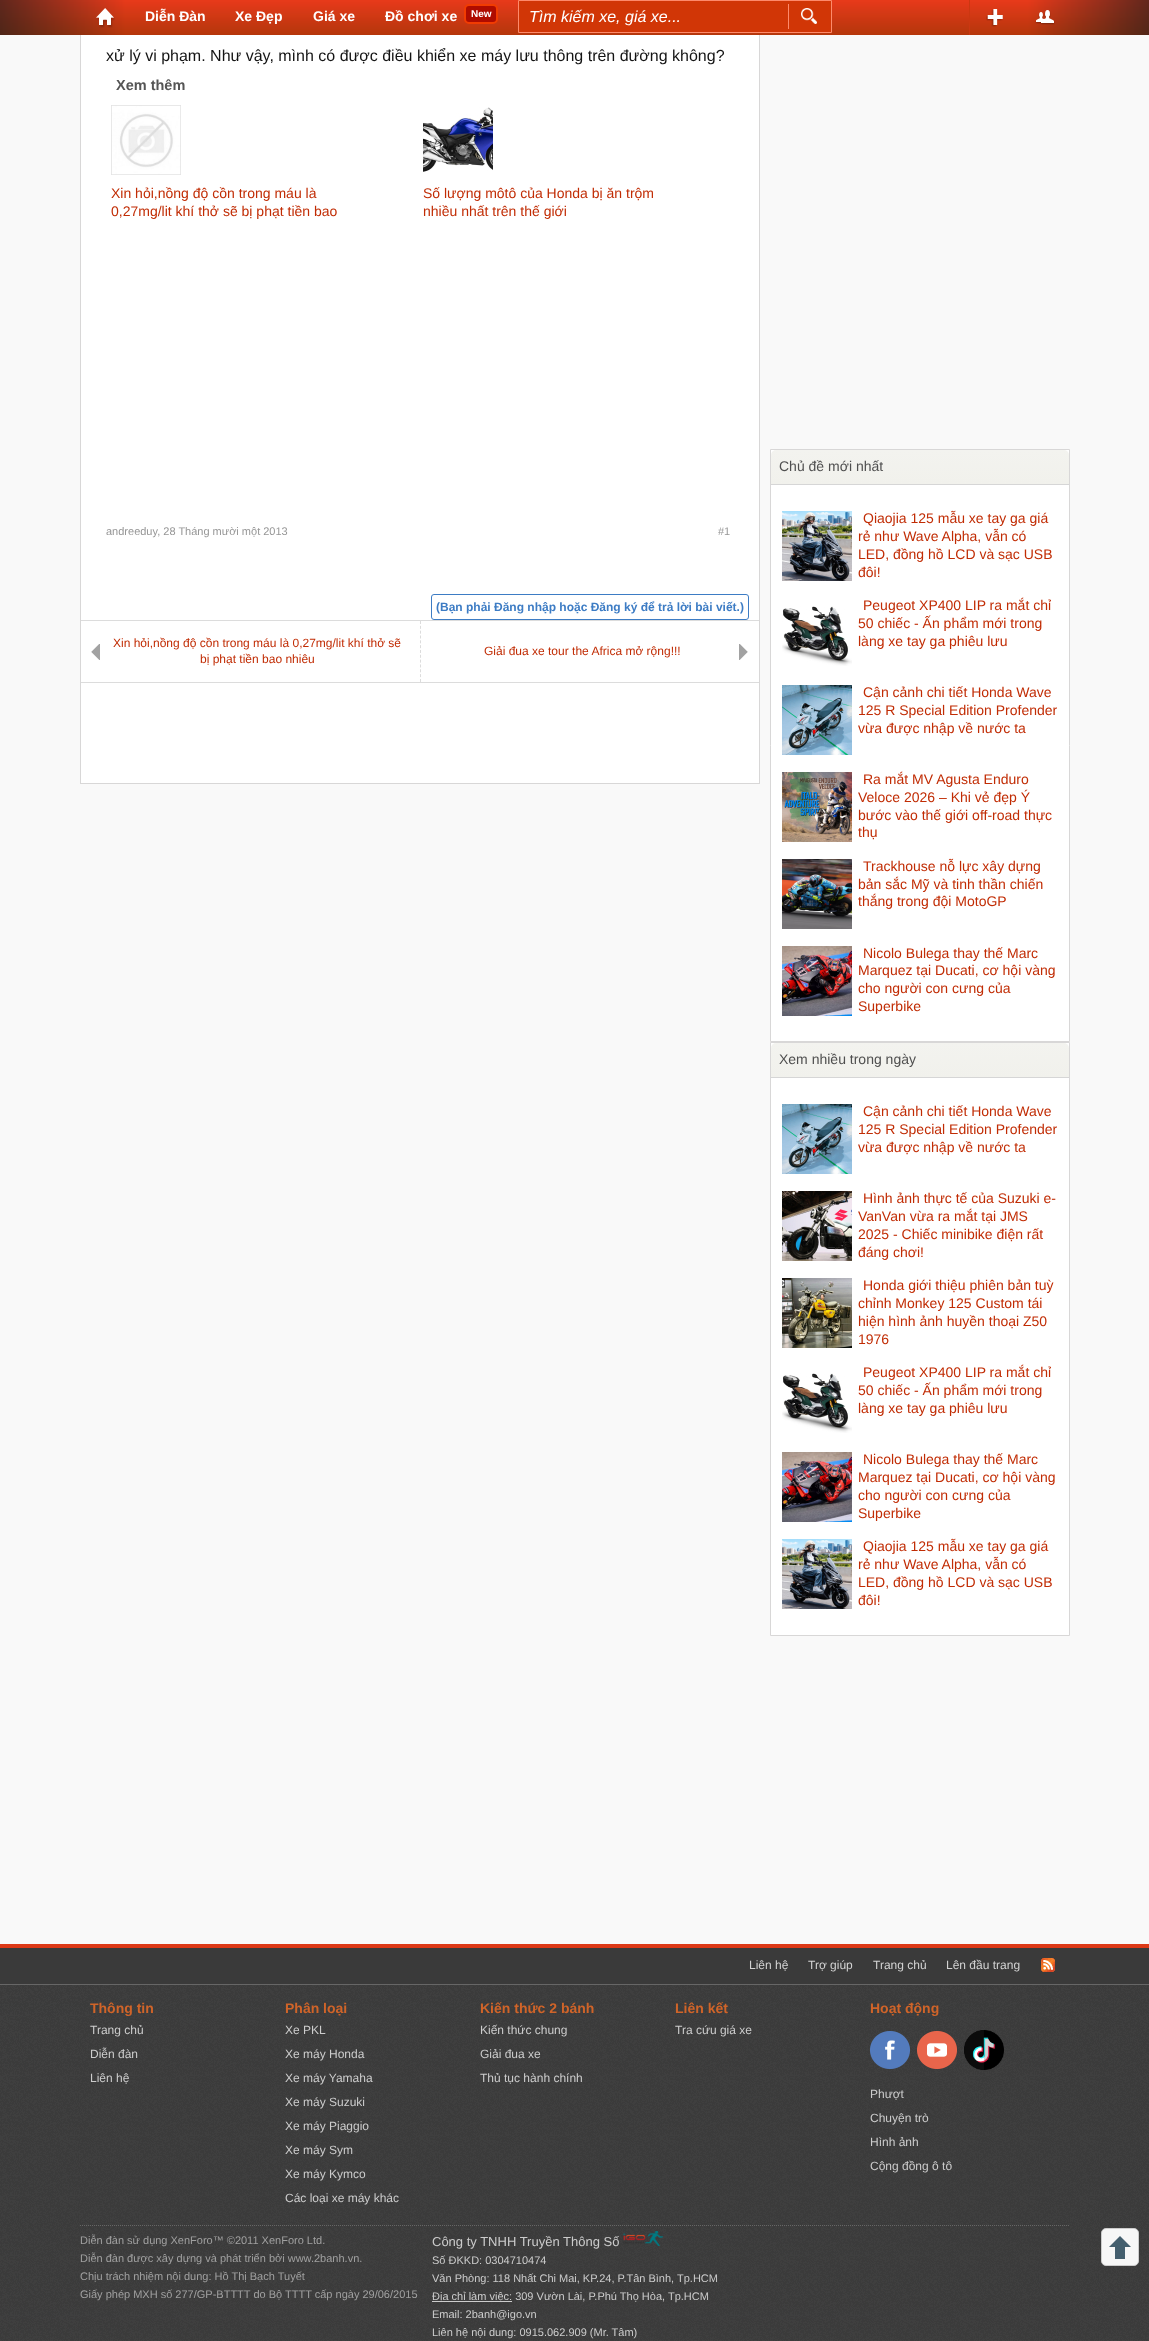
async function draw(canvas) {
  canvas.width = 1149;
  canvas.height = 2341;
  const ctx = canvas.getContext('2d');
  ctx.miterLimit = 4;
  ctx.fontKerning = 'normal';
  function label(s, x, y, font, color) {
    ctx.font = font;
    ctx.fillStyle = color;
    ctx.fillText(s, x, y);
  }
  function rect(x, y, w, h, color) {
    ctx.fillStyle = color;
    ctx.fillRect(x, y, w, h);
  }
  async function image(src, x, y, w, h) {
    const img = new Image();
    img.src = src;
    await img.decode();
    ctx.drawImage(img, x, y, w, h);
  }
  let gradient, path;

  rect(0, 0, 1149, 2341, '#f9f9f9');
  rect(81, 35, 678, 748, '#fff');
  ctx.strokeStyle = '#d8d7d7';
  ctx.strokeRect(80.5, -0.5, 679, 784);
  await image('assets/img1.png', 0, 0, 1149, 35);
  await image('assets/img2.png', 96, 8, 19, 20);
  label('Diễn Đàn', 145, 21, 'bold 14px Liberation Sans', '#fff');
  label('Xe Đẹp', 235, 21, 'bold 14px Liberation Sans', '#fff');
  label('Giá xe', 313, 21, 'bold 14px Liberation Sans', '#fff');
  label('Đồ chơi xe', 385, 21, 'bold 14px Liberation Sans', '#fff');
  ctx.fillStyle = '#af0c00';
  ctx.beginPath();
  ctx.roundRect(465, 5, 32, 18, 4);
  ctx.fill();
  ctx.strokeStyle = '#f13c02';
  ctx.lineWidth = 2;
  ctx.stroke();
  label('New', 471, 17, 'bold 10px Liberation Sans', '#fff');
  ctx.fillStyle = '#d13606';
  ctx.beginPath();
  ctx.rect(518.5, 0.5, 313, 32);
  ctx.fill();
  ctx.strokeStyle = '#fd8a6b';
  ctx.lineWidth = 1;
  ctx.stroke();
  label('Tìm kiếm xe, giá xe...', 529, 22, 'italic 16px Liberation Sans', '#fff');
  rect(788, 4, 1, 25, '#fd8a6b');
  await image('assets/img3.png', 801, 8, 16, 16);
  ctx.fillStyle = '#cb3711';
  path = new Path2D('M969 35V-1L970 0V35Z');
  ctx.fill(path);
  await image('assets/img4.png', 986, 9, 17, 18);
  await image('assets/img5.png', 1035, 10, 20, 15);
  label('xử lý vi phạm. Như vậy, mình có được điều khiển xe máy lưu thông trên đường không?', 106, 61, '16px Liberation Sans', '#141414');
  label('Xem thêm', 116, 90, 'bold 14.5px Liberation Sans', '#555');
  await image('assets/img6.png', 111, 105, 70, 70);
  label('Xin hỏi,nồng độ cồn trong máu là', 111, 198, '14px Liberation Sans', '#c12c04');
  label('0,27mg/lit khí thở sẽ bị phạt tiền bao', 111, 216, '14px Liberation Sans', '#c12c04');
  await image('assets/img7.png', 423, 107, 70, 65);
  label('Số lượng môtô của Honda bị ăn trộm', 423, 198, '14px Liberation Sans', '#c12c04');
  label('nhiều nhất trên thế giới', 423, 216, '14px Liberation Sans', '#c12c04');
  label('andreeduy, 28 Tháng mười một 2013', 106, 535, '11px Liberation Sans', '#969696');
  label('#1', 718, 535, '11px Liberation Sans', '#969696');
  rect(81, 620, 678, 1, '#dcdcdc');
  path = new Path2D('M420.5 621V682');
  ctx.strokeStyle = '#dcdcdc';
  ctx.setLineDash([3, 1.83]);
  ctx.stroke(path);
  ctx.save();
  path = new Path2D('M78 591H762V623H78ZM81 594H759V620H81Z');
  ctx.clip(path, 'evenodd');
  ctx.fillStyle = '#00000066';
  ctx.filter = 'blur(0.5px)';
  ctx.beginPath();
  ctx.rect(81, 594, 678, 26);
  ctx.fill();
  ctx.filter = 'none';
  ctx.restore();
  ctx.beginPath();
  ctx.roundRect(431.5, 594.5, 317, 25, 2.5);
  ctx.strokeStyle = '#3d7cc4';
  ctx.setLineDash([]);
  ctx.stroke();
  label('(Bạn phải Đăng nhập hoặc Đăng ký để trả lời bài viết.)', 436, 611, 'bold 12px Liberation Sans', '#3d7cc4');
  rect(81, 682, 678, 1, '#dcdcdc');
  await image('assets/img8.png', 91, 644, 9, 16);
  label('Xin hỏi,nồng độ cồn trong máu là 0,27mg/lit khí thở sẽ', 113, 647, '12px Liberation Sans', '#c12c04');
  label('bị phạt tiền bao nhiêu', 200, 663, '12px Liberation Sans', '#c12c04');
  await image('assets/img9.png', 739, 644, 9, 16);
  label('Giải đua xe tour the Africa mở rộng!!!', 484, 655, '12px Liberation Sans', '#c12c04');
  ctx.fillStyle = '#fff';
  ctx.beginPath();
  ctx.rect(770.5, 449.5, 299, 592);
  ctx.fill();
  ctx.strokeStyle = '#d8d7d7';
  ctx.stroke();
  gradient = ctx.createLinearGradient(920, 484, 920, 450);
  gradient.addColorStop(0, '#f1f1ec');
  gradient.addColorStop(1, '#f3f3ef');
  ctx.fillStyle = gradient;
  ctx.beginPath();
  ctx.roundRect(771, 450, 298, 34, [5, 5, 0, 0]);
  ctx.fill();
  rect(771, 484, 298, 1, '#d6d6d6');
  label('Chủ đề mới nhất', 779, 471, '14px Liberation Sans', '#4f4f4f');
  await image('assets/img10.png', 782, 511, 70, 70);
  label('Qiaojia 125 mẫu xe tay ga giá', 863, 523, '14px Liberation Sans', '#c12c04');
  label('rẻ như Wave Alpha, vẫn có', 858, 541, '14px Liberation Sans', '#c12c04');
  label('LED, đồng hồ LCD và sạc USB', 858, 559, '14px Liberation Sans', '#c12c04');
  label('đôi!', 858, 577, '14px Liberation Sans', '#c12c04');
  await image('assets/img11.png', 782, 606, 70, 60);
  label('Peugeot XP400 LIP ra mắt chỉ', 863, 610, '14px Liberation Sans', '#c12c04');
  label('50 chiếc - Ấn phẩm mới trong', 858, 628, '14px Liberation Sans', '#c12c04');
  label('làng xe tay ga phiêu lưu', 858, 646, '14px Liberation Sans', '#c12c04');
  await image('assets/img12.png', 782, 685, 70, 70);
  label('Cận cảnh chi tiết Honda Wave', 863, 697, '14px Liberation Sans', '#c12c04');
  label('125 R Special Edition Profender', 858, 715, '14px Liberation Sans', '#c12c04');
  label('vừa được nhập về nước ta', 858, 733, '14px Liberation Sans', '#c12c04');
  await image('assets/img13.png', 782, 772, 70, 70);
  label('Ra mắt MV Agusta Enduro', 863, 784, '14px Liberation Sans', '#c12c04');
  label('Veloce 2026 – Khi vẻ đẹp Ý', 858, 802, '14px Liberation Sans', '#c12c04');
  label('bước vào thế giới off-road thực', 858, 820, '14px Liberation Sans', '#c12c04');
  label('thụ', 858, 837, '14px Liberation Sans', '#c12c04');
  await image('assets/img14.png', 782, 859, 70, 70);
  label('Trackhouse nỗ lực xây dựng', 863, 871, '14px Liberation Sans', '#c12c04');
  label('bản sắc Mỹ và tinh thần chiến', 858, 889, '14px Liberation Sans', '#c12c04');
  label('thắng trong đội MotoGP', 858, 906, '14px Liberation Sans', '#c12c04');
  await image('assets/img15.png', 782, 946, 70, 70);
  label('Nicolo Bulega thay thế Marc', 863, 958, '14px Liberation Sans', '#c12c04');
  label('Marquez tại Ducati, cơ hội vàng', 858, 975, '14px Liberation Sans', '#c12c04');
  label('cho người con cưng của', 858, 993, '14px Liberation Sans', '#c12c04');
  label('Superbike', 858, 1011, '14px Liberation Sans', '#c12c04');
  ctx.fillStyle = '#fff';
  ctx.beginPath();
  ctx.rect(770.5, 1042.5, 299, 593);
  ctx.fill();
  ctx.stroke();
  gradient = ctx.createLinearGradient(920, 1077, 920, 1043);
  gradient.addColorStop(0, '#f1f1ec');
  gradient.addColorStop(1, '#f3f3ef');
  ctx.fillStyle = gradient;
  ctx.beginPath();
  ctx.roundRect(771, 1043, 298, 34, [5, 5, 0, 0]);
  ctx.fill();
  rect(771, 1077, 298, 1, '#d6d6d6');
  label('Xem nhiều trong ngày', 779, 1064, '14px Liberation Sans', '#4f4f4f');
  await image('assets/img12.png', 782, 1104, 70, 70);
  label('Cận cảnh chi tiết Honda Wave', 863, 1116, '14px Liberation Sans', '#c12c04');
  label('125 R Special Edition Profender', 858, 1134, '14px Liberation Sans', '#c12c04');
  label('vừa được nhập về nước ta', 858, 1152, '14px Liberation Sans', '#c12c04');
  await image('assets/img16.png', 782, 1191, 70, 70);
  label('Hình ảnh thực tế của Suzuki e-', 863, 1203, '14px Liberation Sans', '#c12c04');
  label('VanVan vừa ra mắt tại JMS', 858, 1221, '14px Liberation Sans', '#c12c04');
  label('2025 - Chiếc minibike điện rất', 858, 1239, '14px Liberation Sans', '#c12c04');
  label('đáng chơi!', 858, 1257, '14px Liberation Sans', '#c12c04');
  await image('assets/img17.png', 782, 1278, 70, 70);
  label('Honda giới thiệu phiên bản tuỳ', 863, 1290, '14px Liberation Sans', '#c12c04');
  label('chỉnh Monkey 125 Custom tái', 858, 1308, '14px Liberation Sans', '#c12c04');
  label('hiện hình ảnh huyền thoại Z50', 858, 1326, '14px Liberation Sans', '#c12c04');
  label('1976', 858, 1344, '14px Liberation Sans', '#c12c04');
  await image('assets/img11.png', 782, 1373, 70, 60);
  label('Peugeot XP400 LIP ra mắt chỉ', 863, 1377, '14px Liberation Sans', '#c12c04');
  label('50 chiếc - Ấn phẩm mới trong', 858, 1395, '14px Liberation Sans', '#c12c04');
  label('làng xe tay ga phiêu lưu', 858, 1413, '14px Liberation Sans', '#c12c04');
  await image('assets/img15.png', 782, 1452, 70, 70);
  label('Nicolo Bulega thay thế Marc', 863, 1464, '14px Liberation Sans', '#c12c04');
  label('Marquez tại Ducati, cơ hội vàng', 858, 1482, '14px Liberation Sans', '#c12c04');
  label('cho người con cưng của', 858, 1500, '14px Liberation Sans', '#c12c04');
  label('Superbike', 858, 1518, '14px Liberation Sans', '#c12c04');
  await image('assets/img10.png', 782, 1539, 70, 70);
  label('Qiaojia 125 mẫu xe tay ga giá', 863, 1551, '14px Liberation Sans', '#c12c04');
  label('rẻ như Wave Alpha, vẫn có', 858, 1569, '14px Liberation Sans', '#c12c04');
  label('LED, đồng hồ LCD và sạc USB', 858, 1587, '14px Liberation Sans', '#c12c04');
  label('đôi!', 858, 1605, '14px Liberation Sans', '#c12c04');
  rect(0, 1948, 1149, 36, '#3a3a3a');
  rect(0, 1944, 1149, 4, '#dd3917');
  label('Liên hệ', 749, 1969, '12px Liberation Sans', '#d3d3d3');
  label('Trợ giúp', 808, 1969, '12px Liberation Sans', '#d3d3d3');
  label('Trang chủ', 873, 1969, '12px Liberation Sans', '#d3d3d3');
  label('Lên đầu trang', 946, 1969, '12px Liberation Sans', '#d3d3d3');
  await image('assets/img18.png', 1041, 1958, 14, 14);
  await image('assets/img19.png', 0, 1985, 1149, 356);
  rect(0, 1984, 1149, 1, '#666');
  label('Thông tin', 90, 2013, 'bold 14px Liberation Sans', '#d06429');
  label('Trang chủ', 90, 2034, '12px Liberation Sans', '#ccc');
  label('Diễn đàn', 90, 2058, '12px Liberation Sans', '#ccc');
  label('Liên hệ', 90, 2082, '12px Liberation Sans', '#ccc');
  label('Phân loại', 285, 2013, 'bold 14px Liberation Sans', '#d06429');
  label('Xe PKL', 285, 2034, '12px Liberation Sans', '#ccc');
  label('Xe máy Honda', 285, 2058, '12px Liberation Sans', '#ccc');
  label('Xe máy Yamaha', 285, 2082, '12px Liberation Sans', '#ccc');
  label('Xe máy Suzuki', 285, 2106, '12px Liberation Sans', '#ccc');
  label('Xe máy Piaggio', 285, 2130, '12px Liberation Sans', '#ccc');
  label('Xe máy Sym', 285, 2154, '12px Liberation Sans', '#ccc');
  label('Xe máy Kymco', 285, 2178, '12px Liberation Sans', '#ccc');
  label('Các loại xe máy khác', 285, 2202, '12px Liberation Sans', '#ccc');
  label('Kiến thức 2 bánh', 480, 2013, 'bold 14px Liberation Sans', '#d06429');
  label('Kiến thức chung', 480, 2034, '12px Liberation Sans', '#ccc');
  label('Giải đua xe', 480, 2058, '12px Liberation Sans', '#ccc');
  label('Thủ tục hành chính', 480, 2082, '12px Liberation Sans', '#ccc');
  label('Liên kết', 675, 2013, 'bold 14px Liberation Sans', '#d06429');
  label('Tra cứu giá xe', 675, 2034, '12px Liberation Sans', '#ccc');
  label('Hoạt động', 870, 2013, 'bold 14px Liberation Sans', '#d06429');
  await image('assets/img20.png', 870, 2031, 40, 38);
  await image('assets/img21.png', 917, 2031, 40, 38);
  await image('assets/img22.png', 964, 2030, 40, 40);
  label('Phượt', 870, 2098, '12px Liberation Sans', '#ccc');
  label('Chuyện trò', 870, 2122, '12px Liberation Sans', '#ccc');
  label('Hình ảnh', 870, 2146, '12px Liberation Sans', '#ccc');
  label('Cộng đồng ô tô', 870, 2170, '12px Liberation Sans', '#ccc');
  path = new Path2D('M80 2225.5H1070');
  ctx.strokeStyle = '#666';
  ctx.setLineDash([1, 1]);
  ctx.stroke(path);
  label('Diễn đàn sử dụng XenForo™ ©2011 XenForo Ltd.', 80, 2244, '11px Liberation Sans', '#a0a0a0');
  label('Diễn đàn được xây dựng và phát triển bởi www.2banh.vn.', 80, 2262, '11px Liberation Sans', '#a0a0a0');
  label('Chịu trách nhiệm nội dung: Hồ Thị Bạch Tuyết', 80, 2280, '11px Liberation Sans', '#a0a0a0');
  label('Giấy phép MXH số 277/GP-BTTTT do Bộ TTTT cấp ngày 29/06/2015', 80, 2298, '11px Liberation Sans', '#a0a0a0');
  label('Công ty TNHH Truyền Thông Số', 432, 2246, '13px Liberation Sans', '#ccc');
  await image('assets/img23.png', 623, 2231, 40, 15);
  label('Số ĐKKD: 0304710474', 432, 2264, '11px Liberation Sans', '#ccc');
  label('Văn Phòng: 118 Nhất Chi Mai, KP.24, P.Tân Bình, Tp.HCM', 432, 2282, '11px Liberation Sans', '#ccc');
  rect(432, 2301, 80, 1, '#ccc');
  label('Địa chỉ làm việc: 309 Vườn Lài, P.Phú Thọ Hòa, Tp.HCM', 432, 2300, '11px Liberation Sans', '#ccc');
  label('Email: 2banh@igo.vn', 432, 2318, '11px Liberation Sans', '#ccc');
  label('Liên hệ nội dung: 0915.062.909 (Mr. Tâm)', 432, 2336, '11px Liberation Sans', '#ccc');
  ctx.fillStyle = '#f7f7f7';
  ctx.beginPath();
  ctx.roundRect(1101.5, 2228.5, 37, 37, 4.5);
  ctx.fill();
  ctx.strokeStyle = '#ccc';
  ctx.setLineDash([]);
  ctx.stroke();
  ctx.fillStyle = '#445f6e';
  path = new Path2D('M1131 2247H1109L1120 2236Z');
  ctx.fill(path);
  rect(1115, 2247, 10, 12, '#445f6e');
}

draw(document.querySelector('canvas'));
